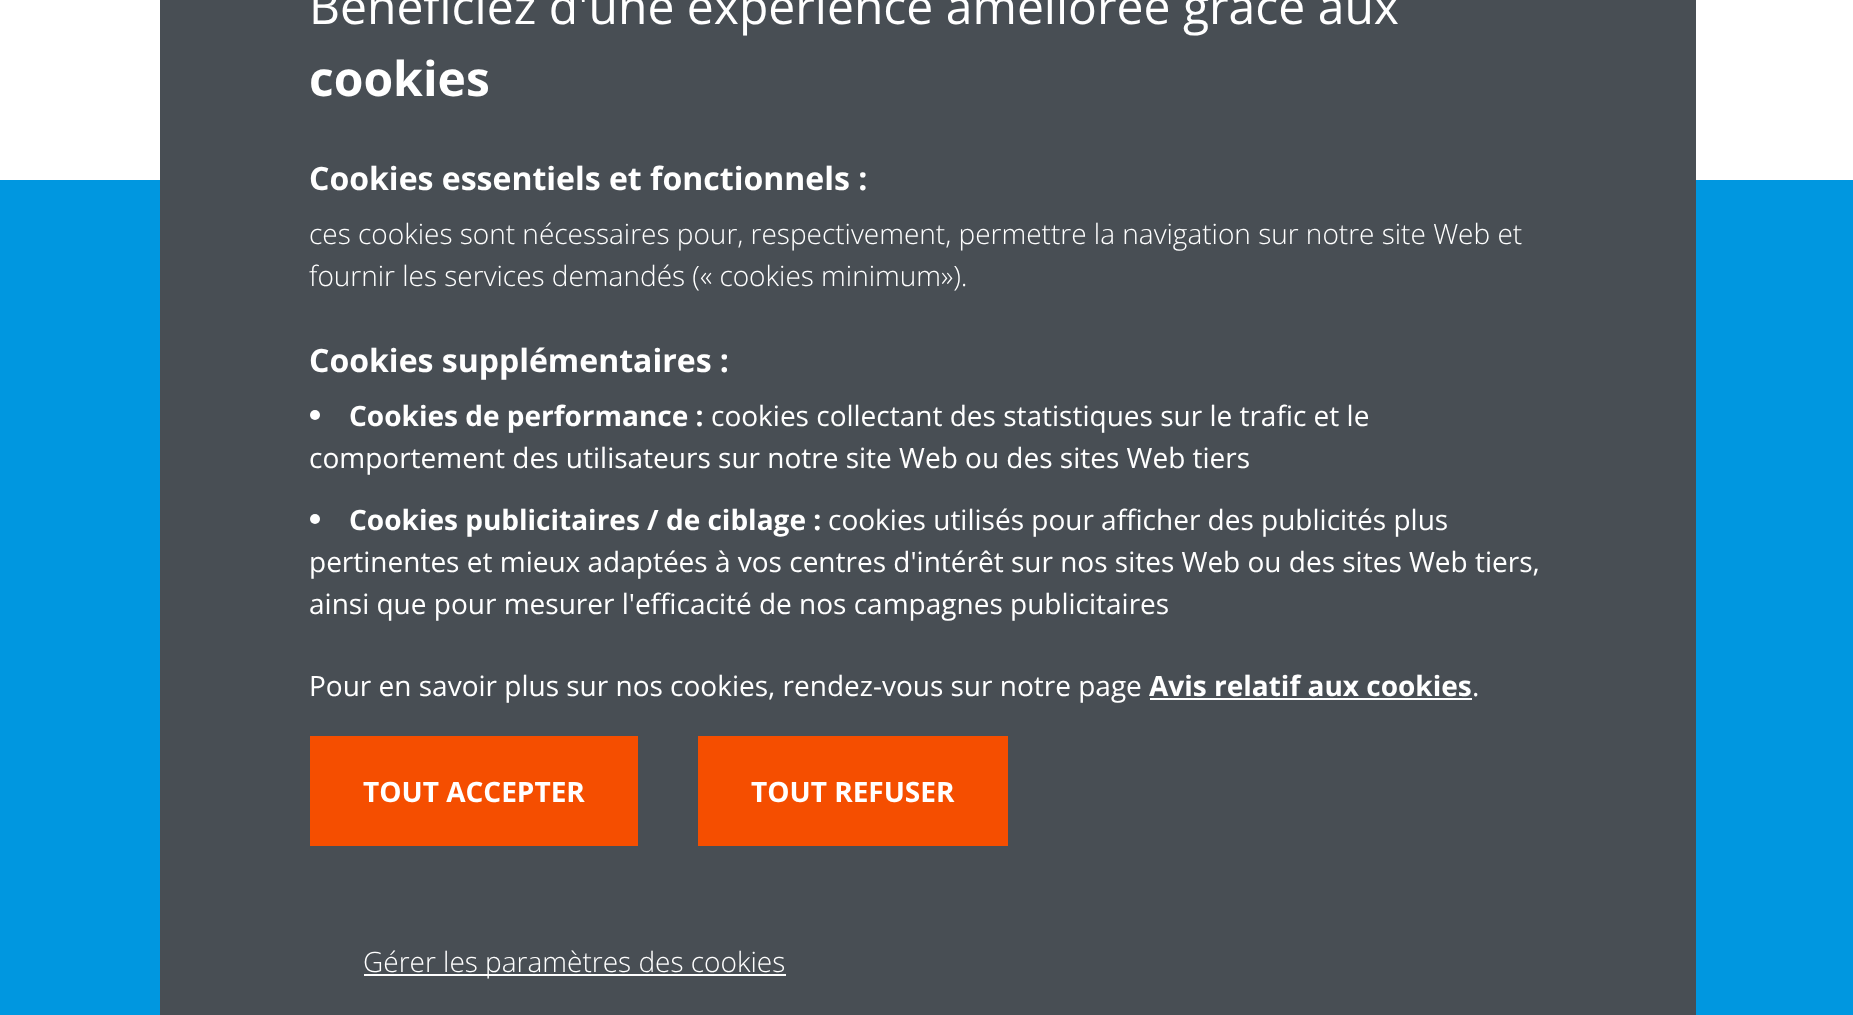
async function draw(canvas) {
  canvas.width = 1853;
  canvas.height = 1015;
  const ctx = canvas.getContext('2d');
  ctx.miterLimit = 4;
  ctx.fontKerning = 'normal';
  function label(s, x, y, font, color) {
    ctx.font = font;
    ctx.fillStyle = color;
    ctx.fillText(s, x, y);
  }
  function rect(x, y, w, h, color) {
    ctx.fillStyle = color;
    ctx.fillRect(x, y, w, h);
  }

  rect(0, 0, 1853, 1015, '#fff');
  rect(0, 180, 1853, 835, '#0097e0');
  rect(160, 0, 1536, 1015, '#484e54');
  label('Bénéficiez d\'une expérience améliorée grâce aux', 309, 24, '48px Open Sans', '#fff');
  label('cookies', 309, 96, 'bold 48px Open Sans', '#fff');
  label('Cookies essentiels et fonctionnels :', 309, 190, 'bold 32px Open Sans', '#fff');
  label('ces cookies sont nécessaires pour, respectivement, permettre la navigation sur notre site Web et', 309, 244, '300 28px Open Sans', '#fff');
  label('fournir les services demandés (« cookies minimum»).', 309, 286, '300 28px Open Sans', '#fff');
  label('Cookies supplémentaires :', 309, 372, 'bold 32px Open Sans', '#fff');
  ctx.beginPath();
  ctx.arc(315, 415, 5, 0, 2 * Math.PI);
  ctx.fill();
  label('Cookies de performance :', 349, 426, 'bold 28px Open Sans', '#fff');
  label('cookies collectant des statistiques sur le trafic et le', 711, 426, '28px Open Sans', '#fff');
  label('comportement des utilisateurs sur notre site Web ou des sites Web tiers', 309, 468, '28px Open Sans', '#fff');
  ctx.beginPath();
  ctx.arc(315, 519, 5, 0, 2 * Math.PI);
  ctx.fill();
  label('Cookies publicitaires / de ciblage :', 349, 530, 'bold 28px Open Sans', '#fff');
  label('cookies utilisés pour afficher des publicités plus', 828, 530, '28px Open Sans', '#fff');
  label('pertinentes et mieux adaptées à vos centres d\'intérêt sur nos sites Web ou des sites Web tiers,', 309, 572, '28px Open Sans', '#fff');
  label('ainsi que pour mesurer l\'efficacité de nos campagnes publicitaires', 309, 614, '28px Open Sans', '#fff');
  label('Pour en savoir plus sur nos cookies, rendez-vous sur notre page', 309, 696, '28px Open Sans', '#fff');
  label('Avis relatif aux cookies', 1149, 696, 'bold 28px Open Sans', '#fff');
  rect(1150, 698, 322, 2, '#fff');
  label('.', 1472, 696, '28px Open Sans', '#fff');
  rect(310, 736, 328, 110, '#f54e00');
  label('TOUT ACCEPTER', 363, 802, 'bold 28px Open Sans', '#fff');
  rect(698, 736, 310, 110, '#f54e00');
  label('TOUT REFUSER', 751, 802, 'bold 28px Open Sans', '#fff');
  rect(364, 974, 422, 2, '#fff');
  label('Gérer les paramètres des cookies', 363, 972, '300 28px Open Sans', '#fff');
}

draw(document.querySelector('canvas'));
